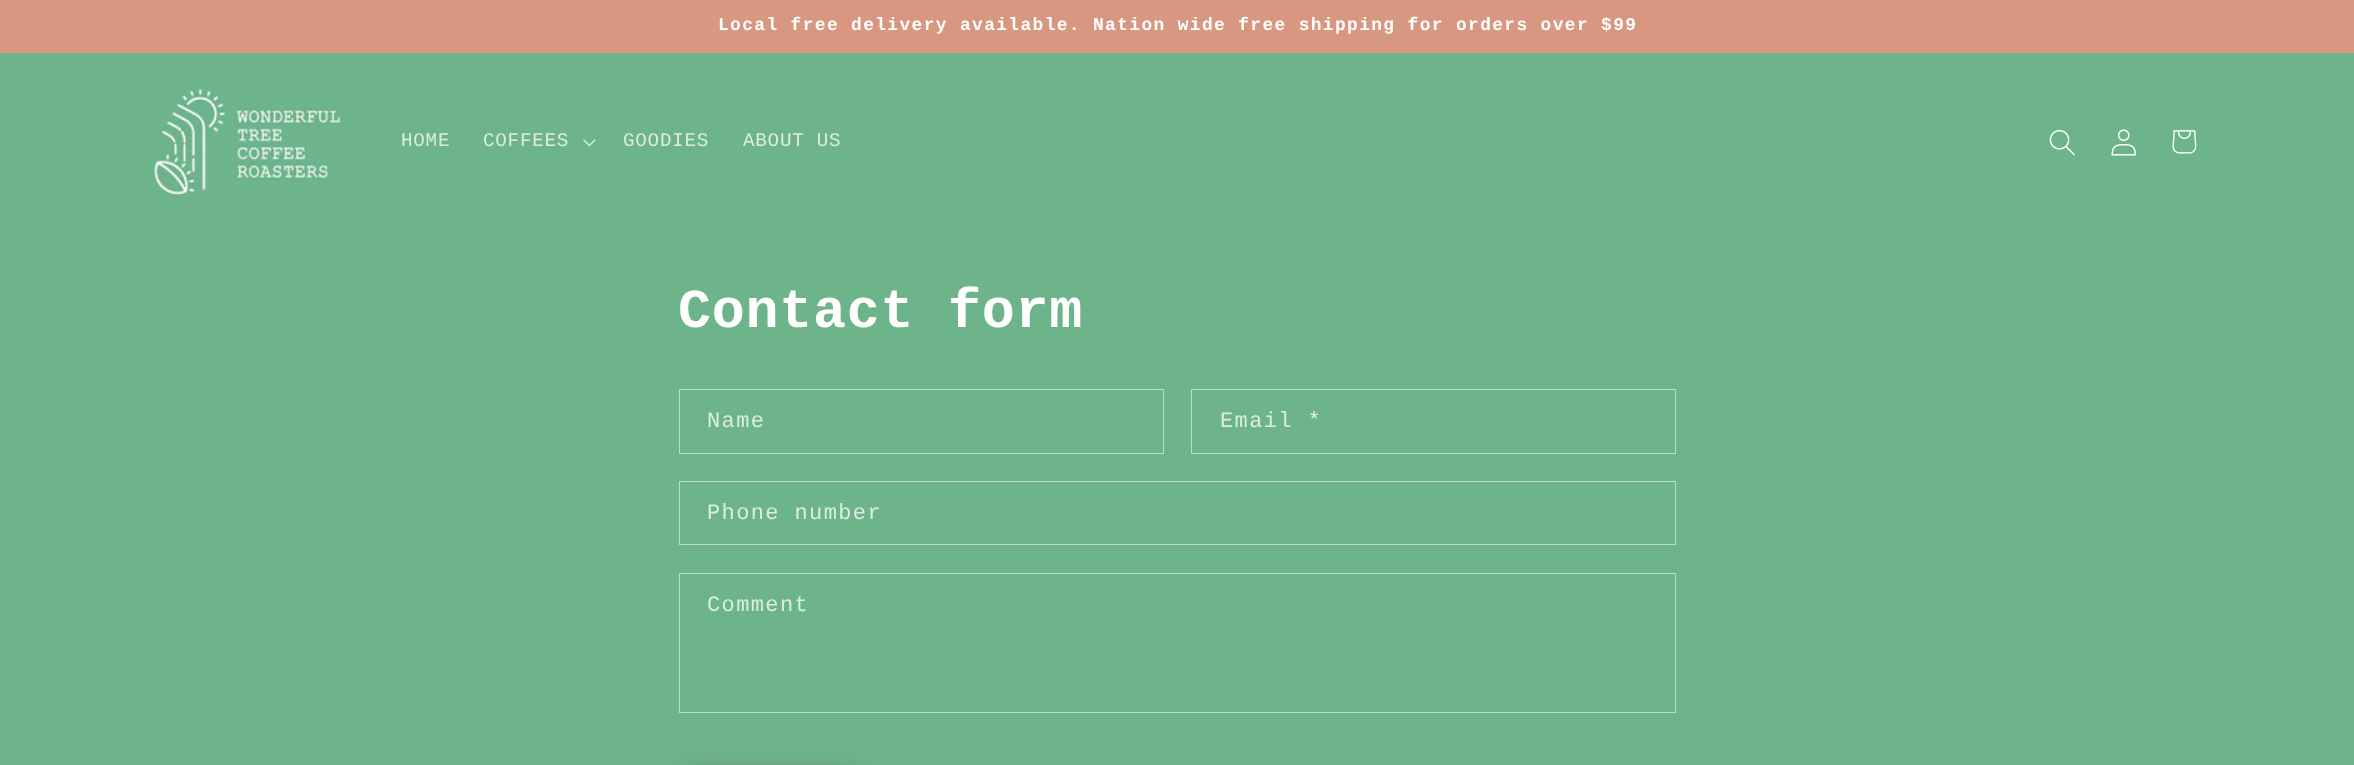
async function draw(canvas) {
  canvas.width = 2354;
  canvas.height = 765;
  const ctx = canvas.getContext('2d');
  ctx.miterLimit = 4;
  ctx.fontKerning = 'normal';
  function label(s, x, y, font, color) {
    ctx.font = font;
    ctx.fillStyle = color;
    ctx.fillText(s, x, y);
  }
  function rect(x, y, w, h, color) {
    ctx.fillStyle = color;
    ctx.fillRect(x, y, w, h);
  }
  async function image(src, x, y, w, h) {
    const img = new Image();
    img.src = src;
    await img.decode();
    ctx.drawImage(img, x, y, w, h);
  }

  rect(0, 0, 2354, 765, '#6db48b');
  rect(0, 0, 2354, 53, '#d79781');
  ctx.letterSpacing = '1.38px';
  label('Local free delivery available. Nation wide free shipping for orders over $99', 718, 30, 'bold 17.88px Liberation Mono', '#fff');
  await image('assets/img1.png', 151, 88, 193, 110);
  ctx.letterSpacing = '0.75px';
  label('HOME', 401, 146, '19.25px Liberation Mono', '#dbece2');
  label('COFFEES', 483, 146, '19.25px Liberation Mono', '#dbece2');
  await image('assets/img2.png', 583, 139, 13, 8);
  label('GOODIES', 623, 146, '19.25px Liberation Mono', '#dbece2');
  label('ABOUT US', 743, 146, '19.25px Liberation Mono', '#dbece2');
  await image('assets/img3.png', 2049, 129, 26, 27);
  await image('assets/img4.png', 2111, 129, 26, 27);
  await image('assets/img5.png', 2172, 130, 25, 24);
  label('Contact form', 678, 327, 'bold 55px Liberation Mono', '#fff');
  ctx.strokeStyle = '#bdddcb';
  ctx.strokeRect(679.5, 389.5, 484, 64);
  ctx.letterSpacing = '1.38px';
  label('Name', 707, 427, '22px Liberation Mono', '#dbece2');
  ctx.strokeRect(1191.5, 389.5, 484, 64);
  label('Email *', 1220, 427, '22px Liberation Mono', '#dbece2');
  ctx.strokeRect(679.5, 481.5, 996, 63);
  label('Phone number', 707, 519, '22px Liberation Mono', '#dbece2');
  ctx.strokeRect(679.5, 573.5, 996, 139);
  label('Comment', 707, 611, '22px Liberation Mono', '#dbece2');
  ctx.fillStyle = '#585858b3';
  ctx.filter = 'blur(12.5px)';
  ctx.beginPath();
  ctx.roundRect(686, 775, 165, 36, 8);
  ctx.fill();
  ctx.filter = 'none';
}

draw(document.querySelector('canvas'));
